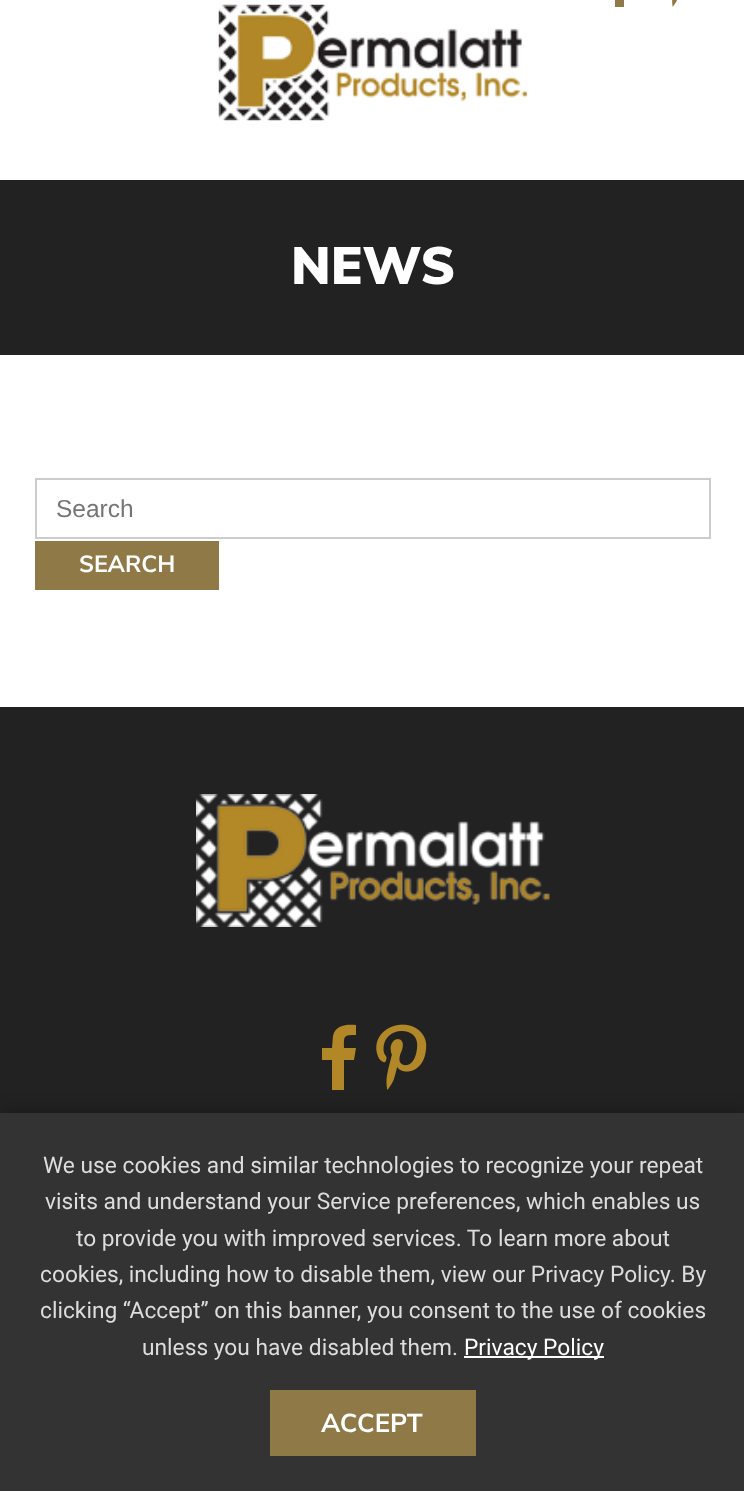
async function draw(canvas) {
  canvas.width = 744;
  canvas.height = 1491;
  const ctx = canvas.getContext('2d');
  ctx.miterLimit = 4;
  ctx.fontKerning = 'normal';
  function label(s, x, y, font, color) {
    ctx.font = font;
    ctx.fillStyle = color;
    ctx.fillText(s, x, y);
  }
  function rect(x, y, w, h, color) {
    ctx.fillStyle = color;
    ctx.fillRect(x, y, w, h);
  }
  async function image(src, x, y, w, h) {
    const img = new Image();
    img.src = src;
    await img.decode();
    ctx.drawImage(img, x, y, w, h);
  }
  let path;

  rect(0, 0, 744, 1491, '#fff');
  await image('assets/img1.png', 218, 4, 309, 117);
  rect(615, 0, 9, 7, '#8f7946');
  await image('assets/img2.png', 672, 0, 5, 7);
  rect(0, 180, 744, 175, '#222');
  label('NEWS', 291, 284, '900 52.5px Nunito Sans', '#fff');
  ctx.strokeStyle = '#ccc';
  ctx.lineWidth = 2;
  ctx.strokeRect(36, 479, 674, 59);
  label('Search', 56, 517, '24.5px Liberation Sans', '#757575');
  rect(35, 541, 184, 49, '#8f7946');
  label('SEARCH', 79, 572, 'bold 23.5px Nunito Sans', '#fff');
  rect(0, 707, 744, 406, '#222');
  await image('assets/img3.png', 196, 794, 354, 133);
  ctx.fillStyle = '#b18727';
  path = new Path2D('M356 1025V1035C343 1035 344 1036 344 1048H356L354 1060H344V1090H332V1060H322V1048H332L333 1036C335 1025 347 1024 356 1025Z');
  ctx.fill(path);
  await image('assets/img4.png', 376, 1024, 51, 66);
  ctx.fillStyle = '#0000004d';
  ctx.filter = 'blur(9px)';
  ctx.beginPath();
  ctx.rect(0, 1113, 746, 378);
  ctx.fill();
  ctx.filter = 'none';
  rect(0, 1113, 744, 378, '#333');
  label('We use cookies and similar technologies to recognize your repeat', 43, 1173, '22.75px Roboto', '#ddd');
  label('visits and understand your Service preferences, which enables us', 45, 1209, '22.75px Roboto', '#ddd');
  label('to provide you with improved services. To learn more about', 76, 1246, '22.75px Roboto', '#ddd');
  label('cookies, including how to disable them, view our Privacy Policy. By', 40, 1282, '22.75px Roboto', '#ddd');
  label('clicking “Accept” on this banner, you consent to the use of cookies', 40, 1318, '22.75px Roboto', '#ddd');
  label('unless you have disabled them.', 142, 1355, '22.75px Roboto', '#ddd');
  rect(464, 1356, 140, 2, '#fff');
  label('Privacy Policy', 464, 1355, '22.75px Roboto', '#fff');
  rect(270, 1390, 206, 66, '#8f7946');
  label('ACCEPT', 321, 1432, 'bold 26px Nunito Sans', '#fff');
}

draw(document.querySelector('canvas'));
